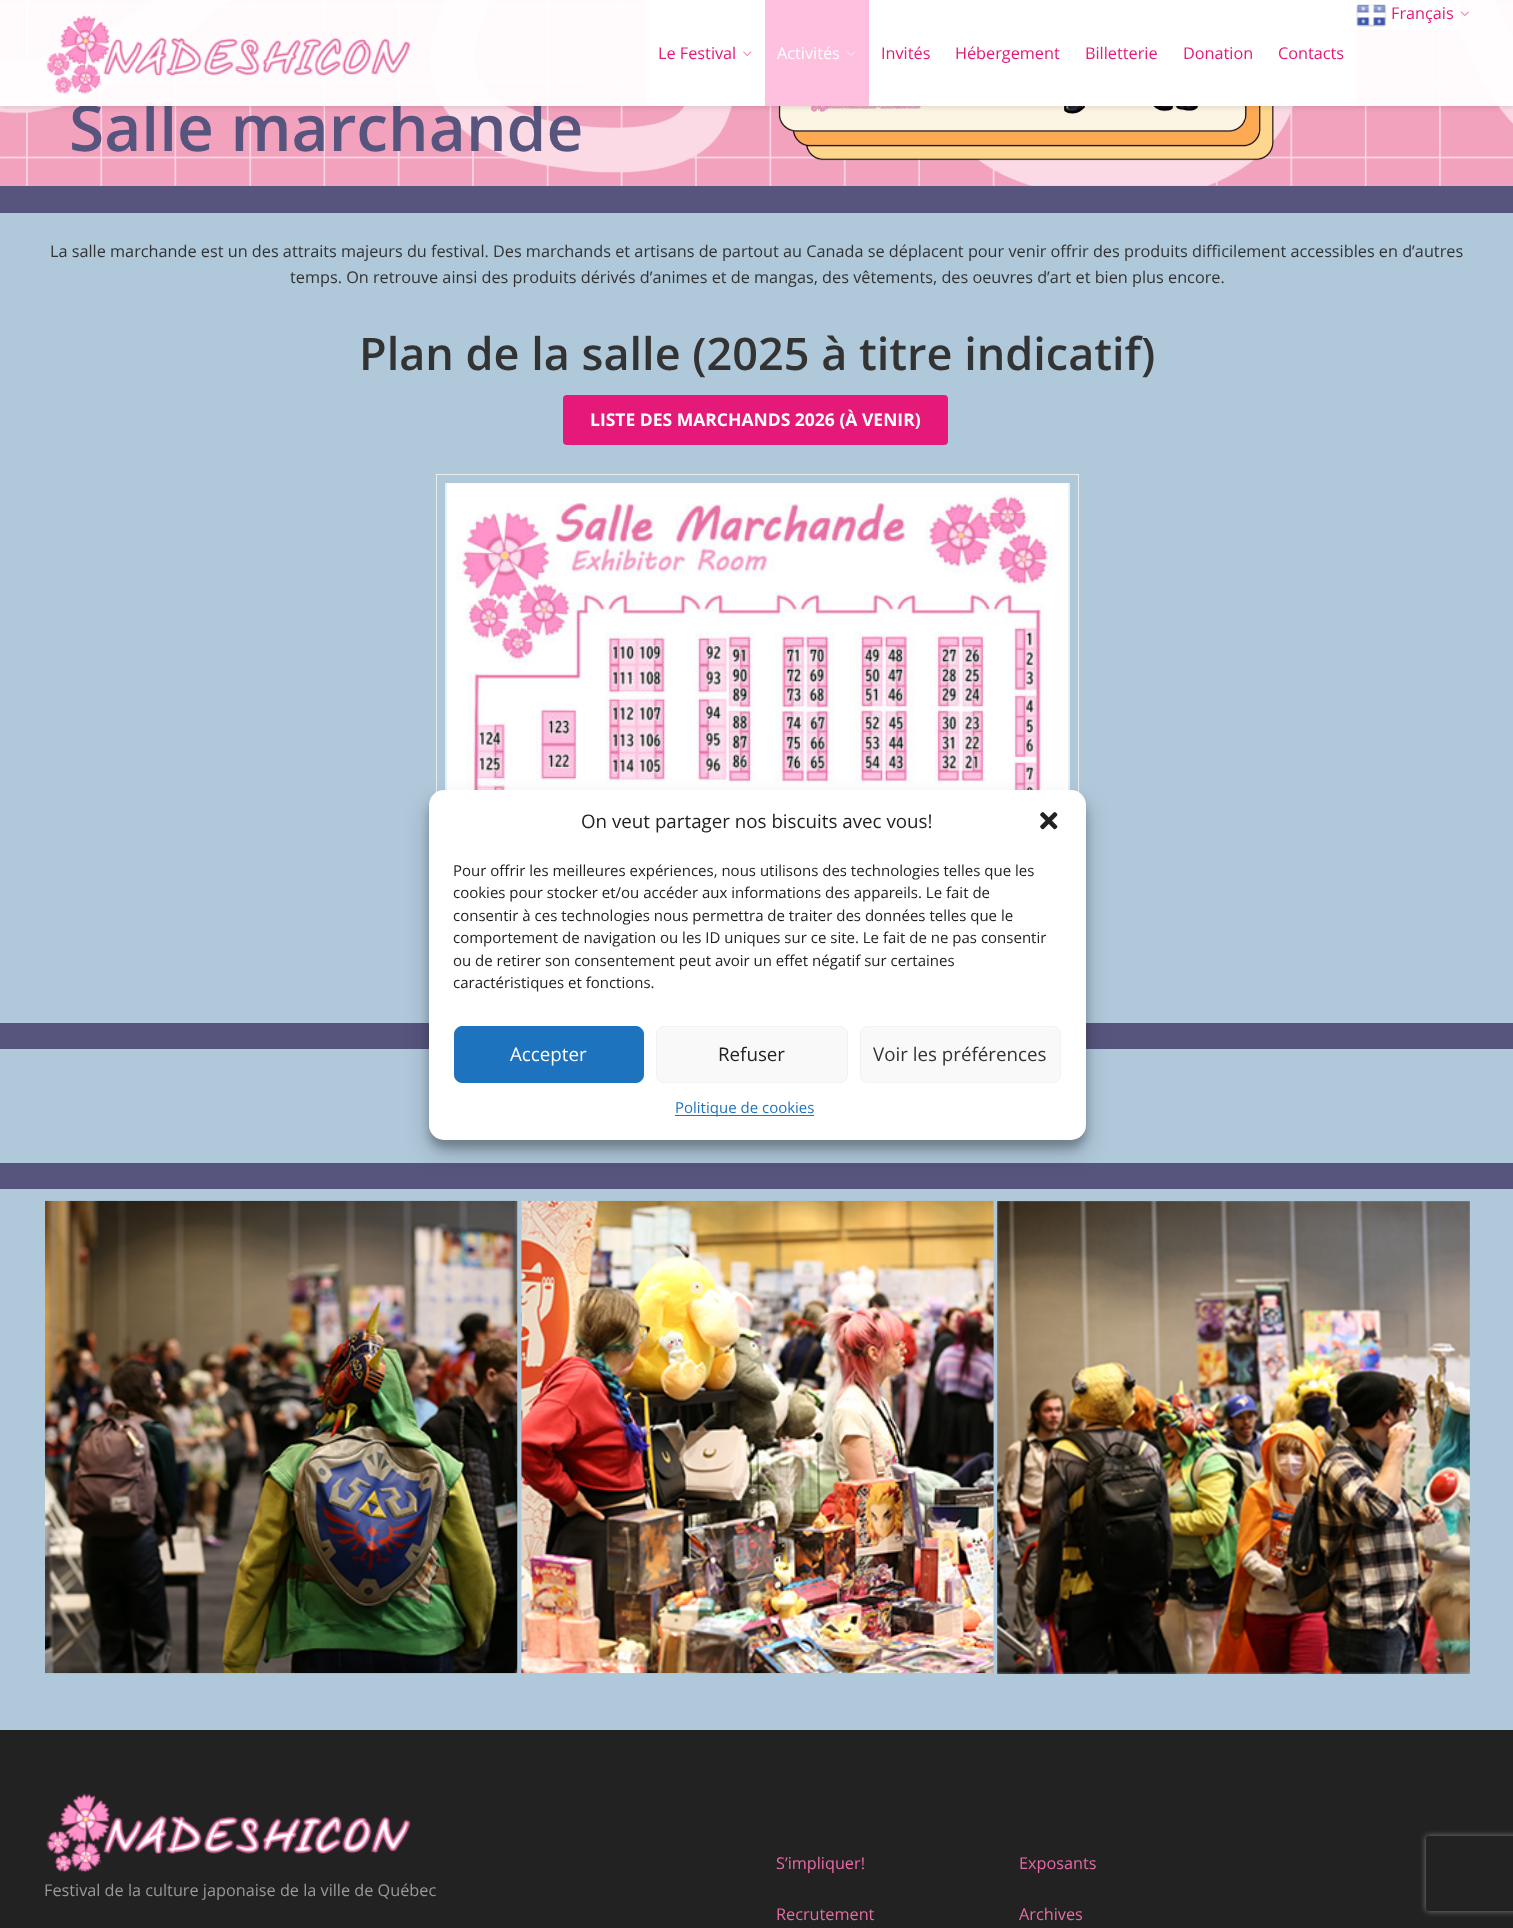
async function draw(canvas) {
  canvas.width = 1513;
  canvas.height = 1928;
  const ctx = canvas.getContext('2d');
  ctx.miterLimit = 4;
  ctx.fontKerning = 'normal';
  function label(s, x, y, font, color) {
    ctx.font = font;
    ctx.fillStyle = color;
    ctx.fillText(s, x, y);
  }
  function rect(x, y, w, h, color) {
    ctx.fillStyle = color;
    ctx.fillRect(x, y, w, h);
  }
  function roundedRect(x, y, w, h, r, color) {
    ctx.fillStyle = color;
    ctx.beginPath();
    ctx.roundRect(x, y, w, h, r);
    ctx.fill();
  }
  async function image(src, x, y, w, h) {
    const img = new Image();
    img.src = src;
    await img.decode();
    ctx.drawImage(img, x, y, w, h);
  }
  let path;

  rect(0, 0, 1513, 1928, '#afc8da');
  await image('assets/img6.png', 0, 0, 1513, 186);
  label('Salle marchande', 69, 151, '600 64px Open Sans', '#57557e');
  rect(0, 0, 1513, 106, '#fffffff2');
  await image('assets/img1.png', 46, 15, 365, 79);
  rect(1356, 0, 103, 30, '#fff');
  await image('assets/img2.png', 1356, 4, 31, 23);
  label('Français', 1391, 19, '16.25px Open Sans', '#e51978');
  await image('assets/img3.png', 1460, 11, 9, 6);
  rect(646, 0, 119, 106, '#fff');
  label('Le Festival', 658, 59, '16.25px Open Sans', '#e51978');
  await image('assets/img4.png', 743, 51, 9, 6);
  rect(765, 0, 104, 106, '#ffbfdf');
  label('Activités', 777, 59, '16.25px Open Sans', '#fff');
  await image('assets/img5.png', 847, 51, 8, 5);
  rect(869, 0, 487, 106, '#fff');
  label('Invités', 881, 59, '16.25px Open Sans', '#e51978');
  label('Hébergement', 955, 59, '16.25px Open Sans', '#e51978');
  label('Billetterie', 1085, 59, '16.25px Open Sans', '#e51978');
  label('Donation', 1183, 59, '16.25px Open Sans', '#e51978');
  label('Contacts', 1278, 59, '16.25px Open Sans', '#e51978');
  ctx.save();
  ctx.beginPath();
  ctx.rect(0, 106, 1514, 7);
  ctx.clip();
  ctx.fillStyle = '#0000001a';
  ctx.filter = 'blur(2.5px)';
  ctx.beginPath();
  ctx.roundRect(0, 101, 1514, 7, 3.5);
  ctx.fill();
  ctx.filter = 'none';
  ctx.restore();
  rect(0, 186, 1513, 27, '#57557e');
  label('La salle marchande est un des attraits majeurs du festival. Des marchands et artisans de partout au Canada se déplacent pour venir offrir des produits difficilement accessibles en d’autres', 50, 257, '16.25px Open Sans', '#333');
  label('temps. On retrouve ainsi des produits dérivés d’animes et de mangas, des vêtements, des oeuvres d’art et bien plus encore.', 290, 283, '16.25px Open Sans', '#333');
  label('Plan de la salle (2025 à titre indicatif)', 359, 370, '600 45px Open Sans', '#333');
  roundedRect(563, 395, 385, 50, 4, '#e51978');
  label('LISTE DES MARCHANDS 2026 (À VENIR)', 590, 426, 'bold 17.5px Open Sans', '#fff');
  ctx.strokeStyle = '#ebebeb';
  ctx.strokeRect(436.5, 474.5, 642, 535);
  ctx.strokeRect(445.5, 483.5, 624, 517);
  await image('assets/img7.png', 446, 483, 623, 307);
  rect(0, 1023, 1513, 26, '#57557e');
  rect(0, 1163, 1513, 26, '#57557e');
  await image('assets/img8.png', 45, 1200, 473, 474);
  await image('assets/img9.png', 521, 1200, 473, 474);
  await image('assets/img10.png', 997, 1201, 473, 473);
  rect(0, 1730, 1513, 198, '#222');
  await image('assets/img11.png', 46, 1793, 365, 80);
  label('Festival de la culture japonaise de la ville de Québec', 44, 1896, '16.25px Open Sans', '#999');
  label('S’impliquer!', 776, 1869, '16.25px Open Sans', '#e56ca4');
  label('Recrutement', 776, 1920, '16.25px Open Sans', '#e56ca4');
  label('Exposants', 1019, 1869, '16.25px Open Sans', '#e56ca4');
  label('Archives', 1019, 1920, '16.25px Open Sans', '#e56ca4');
  ctx.fillStyle = '#0000003b';
  ctx.filter = 'blur(4px)';
  ctx.beginPath();
  ctx.roundRect(429, 798, 657, 350, 15);
  ctx.fill();
  ctx.filter = 'none';
  ctx.fillStyle = '#00000030';
  ctx.filter = 'blur(12.5px)';
  ctx.beginPath();
  ctx.roundRect(429, 803, 657, 350, 15);
  ctx.fill();
  ctx.filter = 'none';
  roundedRect(429, 790, 657, 350, 15, '#fff');
  label('On veut partager nos biscuits avec vous!', 581, 828, '18.75px Open Sans', '#222');
  await image('assets/img12.png', 1040, 812, 18, 18);
  label('Pour offrir les meilleures expériences, nous utilisons des technologies telles que les', 453, 876, '15px Open Sans', '#222');
  label('cookies pour stocker et/ou accéder aux informations des appareils. Le fait de', 453, 898, '15px Open Sans', '#222');
  label('consentir à ces technologies nous permettra de traiter des données telles que le', 453, 921, '15px Open Sans', '#222');
  label('comportement de navigation ou les ID uniques sur ce site. Le fait de ne pas consentir', 453, 943, '15px Open Sans', '#222');
  label('ou de retirer son consentement peut avoir un effet négatif sur certaines', 453, 966, '15px Open Sans', '#222');
  label('caractéristiques et fonctions.', 453, 988, '15px Open Sans', '#222');
  ctx.fillStyle = '#1e73be';
  ctx.beginPath();
  ctx.roundRect(454.5, 1026.5, 189, 56, 7.5);
  ctx.fill();
  ctx.strokeStyle = '#1e73be';
  ctx.stroke();
  label('Accepter', 510, 1061, '18.75px Open Sans', '#fff');
  ctx.fillStyle = '#f9f9f9';
  ctx.beginPath();
  ctx.roundRect(656.5, 1026.5, 191, 56, 7.5);
  ctx.fill();
  ctx.strokeStyle = '#f2f2f2';
  ctx.stroke();
  label('Refuser', 718, 1061, '18.75px Open Sans', '#222');
  ctx.fillStyle = '#f9f9f9';
  ctx.beginPath();
  ctx.roundRect(860.5, 1026.5, 200, 56, 7.5);
  ctx.fill();
  ctx.stroke();
  label('Voir les préférences', 873, 1061, '18.75px Open Sans', '#333');
  rect(675, 1115, 139, 1, '#1e73be');
  label('Politique de cookies', 675, 1113, '15px Open Sans', '#1e73be');
  ctx.save();
  path = new Path2D('M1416 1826H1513V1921H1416ZM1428.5 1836H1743.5C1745 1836 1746 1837 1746 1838.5V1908.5C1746 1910 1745 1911 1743.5 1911H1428.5C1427 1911 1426 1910 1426 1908.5V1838.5C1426 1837 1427 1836 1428.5 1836Z');
  ctx.clip(path, 'evenodd');
  ctx.fillStyle = '#808080';
  ctx.filter = 'blur(3px)';
  ctx.beginPath();
  ctx.roundRect(1426, 1836, 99, 75, 2.5);
  ctx.fill();
  ctx.filter = 'none';
  ctx.restore();
}

draw(document.querySelector('canvas'));
